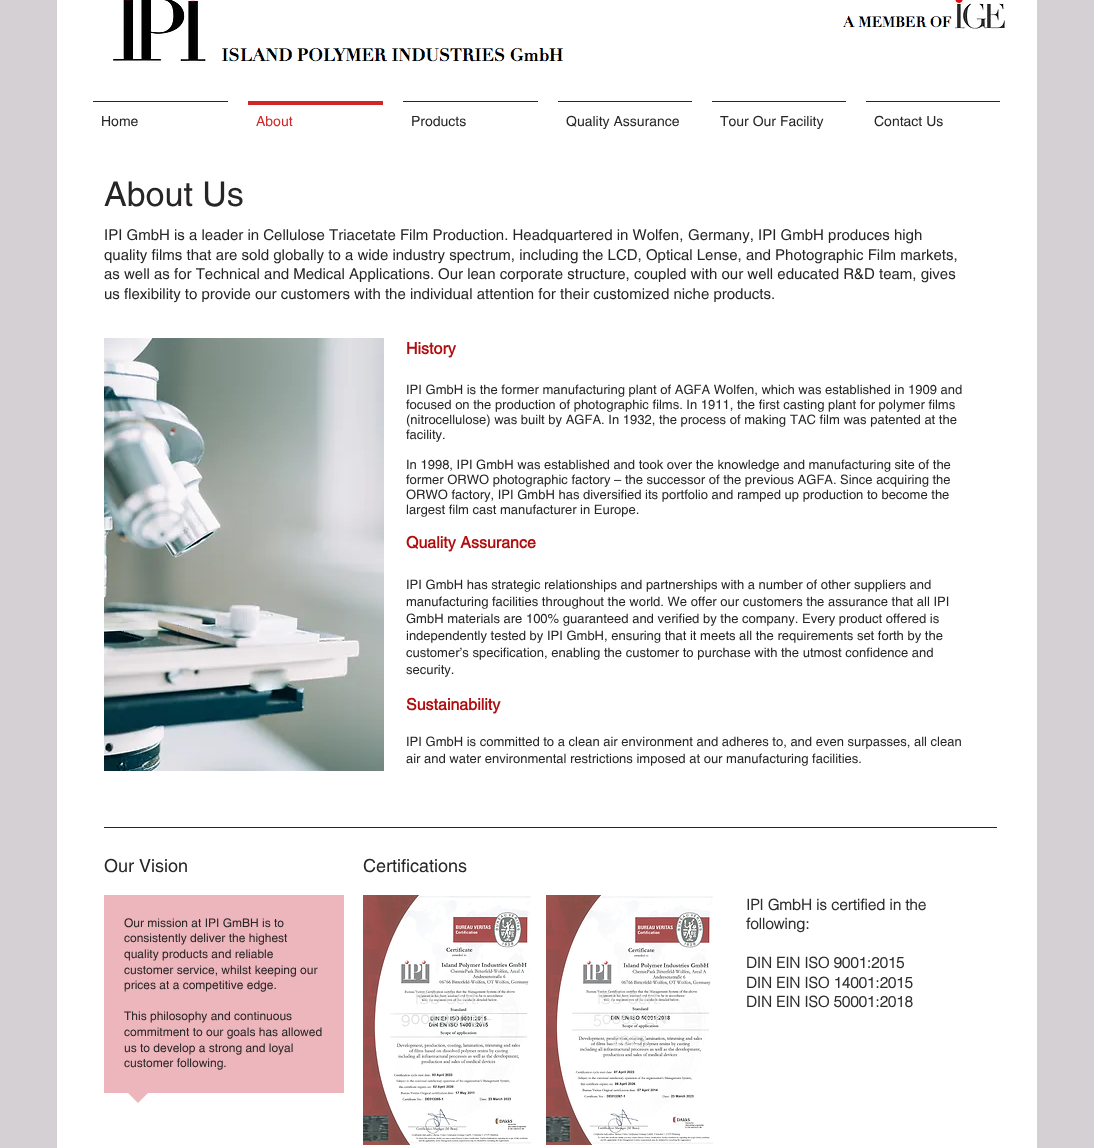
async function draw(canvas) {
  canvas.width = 1094;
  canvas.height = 1148;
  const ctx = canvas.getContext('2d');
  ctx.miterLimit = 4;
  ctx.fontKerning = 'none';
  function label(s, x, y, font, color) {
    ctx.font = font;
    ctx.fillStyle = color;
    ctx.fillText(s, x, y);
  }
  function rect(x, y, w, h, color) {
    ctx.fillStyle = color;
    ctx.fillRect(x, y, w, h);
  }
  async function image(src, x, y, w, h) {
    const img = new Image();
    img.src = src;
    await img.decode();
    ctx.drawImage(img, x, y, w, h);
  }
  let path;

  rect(0, 0, 1094, 1148, '#d4d0d3');
  rect(57, 0, 980, 1148, '#fff');
  await image('assets/img1.png', 110, 0, 96, 64);
  await image('assets/img3.png', 952, 0, 55, 29);
  await image('assets/img2.png', 842, 16, 113, 13);
  await image('assets/img4.png', 221, 47, 343, 15);
  rect(93, 101, 135, 1, '#282527');
  label('Home', 101, 126, '14px helvetica', '#282527');
  rect(248, 101, 135, 4, '#d12626');
  label('About', 256, 126, '14px helvetica', '#d12626');
  rect(403, 101, 135, 1, '#282527');
  label('Products', 411, 126, '14px helvetica', '#282527');
  rect(558, 101, 134, 1, '#282527');
  label('Quality Assurance', 566, 126, '14px helvetica', '#282527');
  rect(712, 101, 134, 1, '#282527');
  label('Tour Our Facility', 720, 126, '14px helvetica', '#282527');
  rect(866, 101, 134, 1, '#282527');
  label('Contact Us', 874, 126, '14px helvetica', '#282527');
  label('About Us', 104, 206, '34px helvetica', '#282527');
  label('IPI GmbH is a leader in Cellulose Triacetate Film Production. Headquartered in Wolfen,', 104, 240, '15px helvetica', '#282527');
  label('Germany, IPI GmbH produces high', 688, 240, '15px helvetica', '#282527');
  label('quality films that are sold globally to a wide industry spectrum, including the LCD, Optical Lense, and Photographic Film markets,', 104, 260, '15px helvetica', '#282527');
  label('as well as for Technical and Medical Applications.', 104, 279, '15px helvetica', '#282527');
  label('Our lean corporate structure, coupled with our well educated R&D team, gives', 438, 279, '15px helvetica', '#282527');
  label('us flexibility to provide our customers with the individual attention for their customized niche products.', 104, 299, '15px helvetica', '#282527');
  await image('assets/img5.png', 104, 338, 280, 433);
  label('History', 406, 354, 'bold 16px helvetica', '#b00e0e');
  label('IPI GmbH is the former manufacturing plant of AGFA Wolfen, which was', 406, 394, '13px helvetica', '#282527');
  label('established in 1909 and', 825, 394, '13px helvetica', '#282527');
  label('focused on the production of photographic films. In 1911, the first casting plant for polymer films', 406, 409, '13px helvetica', '#282527');
  label('(nitrocellulose) was built by AGFA. In 1932, the process of making', 406, 424, '13px helvetica', '#282527');
  label('TAC film was patented at the', 790, 424, '13px helvetica', '#282527');
  label('facility.', 406, 439, '13px helvetica', '#282527');
  label('In 1998, IPI GmbH was established and took over the knowledge and manufacturing site of the', 406, 469, '13px helvetica', '#282527');
  label('former ORWO photographic factory – the successor of the previous AGFA.', 406, 484, '13px helvetica', '#282527');
  label('Since acquiring the', 840, 484, '13px helvetica', '#282527');
  label('ORWO factory, IPI GmbH has diversified its portfolio and ramped up production to become the', 406, 499, '13px helvetica', '#282527');
  label('largest film cast manufacturer in Europe.', 406, 514, '13px helvetica', '#282527');
  label('Quality Assurance', 406, 548, 'bold 16px helvetica', '#b00e0e');
  label('IPI GmbH has strategic relationships and partnerships with a number of other suppliers and', 406, 589, '13px helvetica', '#282527');
  label('manufacturing facilities throughout the world. We offer our customers the assurance that all IPI', 406, 606, '13px helvetica', '#282527');
  label('GmbH materials are 100% guaranteed and verified by the company. Every product offered is', 406, 623, '13px helvetica', '#282527');
  label('independently tested by IPI GmbH, ensuring that it meets all the requirements set forth by the', 406, 640, '13px helvetica', '#282527');
  label('customer’s specification, enabling the customer to purchase with the utmost confidence and', 406, 657, '13px helvetica', '#282527');
  label('security.', 406, 674, '13px helvetica', '#282527');
  label('Sustainability', 406, 710, 'bold 16px helvetica', '#b00e0e');
  label('IPI GmbH is committed to a clean air environment and adheres to, and even surpasses, all clean', 406, 746, '13px helvetica', '#282527');
  label('air and water environmental restrictions imposed at our manufacturing facilities.', 406, 763, '13px helvetica', '#282527');
  rect(104, 827, 893, 1, '#282527');
  label('Our Vision', 104, 872, '18px helvetica', '#282527');
  label('Certifications', 363, 872, '18px helvetica', '#282527');
  rect(104, 895, 240, 198, '#edb6bc');
  label('Our mission at IPI GmBH is to', 124, 927, '12px helvetica', '#282527');
  label('consistently deliver the highest', 124, 942, '12px helvetica', '#282527');
  label('quality products and reliable', 124, 958, '12px helvetica', '#282527');
  label('customer service, whilst keeping our', 124, 974, '12px helvetica', '#282527');
  label('prices at a competitive edge.', 124, 989, '12px helvetica', '#282527');
  label('This philosophy and continuous', 124, 1020, '12px helvetica', '#282527');
  label('commitment to our goals has allowed', 124, 1036, '12px helvetica', '#282527');
  label('us to develop a strong and loyal', 124, 1052, '12px helvetica', '#282527');
  label('customer following.', 124, 1067, '12px helvetica', '#282527');
  ctx.fillStyle = '#edb6bc';
  path = new Path2D('M128 1093H148L138 1103Z');
  ctx.fill(path);
  await image('assets/img6.png', 363, 895, 168, 250);
  label('ISO Cert.', 415, 1004, '16px Raleway', '#e6e6e6');
  label('9001+14001-', 401, 1024, '16px Raleway', '#dcdedd');
  await image('assets/img7.png', 546, 895, 167, 250);
  label('ISO Cert.', 597, 1004, '16px Raleway', '#e6e6e6');
  label('50001-EN', 593, 1024, '16px Raleway', '#e6e6e6');
  label('2023', 612, 1045, '16px Raleway', '#e6e6e6');
  label('IPI GmbH is certified in the', 746, 910, 'bold 15px "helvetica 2"', '#2f2e2e');
  label('following:', 746, 929, 'bold 15px "helvetica 2"', '#2f2e2e');
  label('DIN EIN ISO 9001:2015', 746, 968, 'bold 15px "helvetica 2"', '#2f2e2e');
  label('DIN EIN ISO 14001:2015', 746, 988, 'bold 15px "helvetica 2"', '#2f2e2e');
  label('DIN EIN ISO 50001:2018', 746, 1007, 'bold 15px "helvetica 2"', '#2f2e2e');
}

draw(document.querySelector('canvas'));
